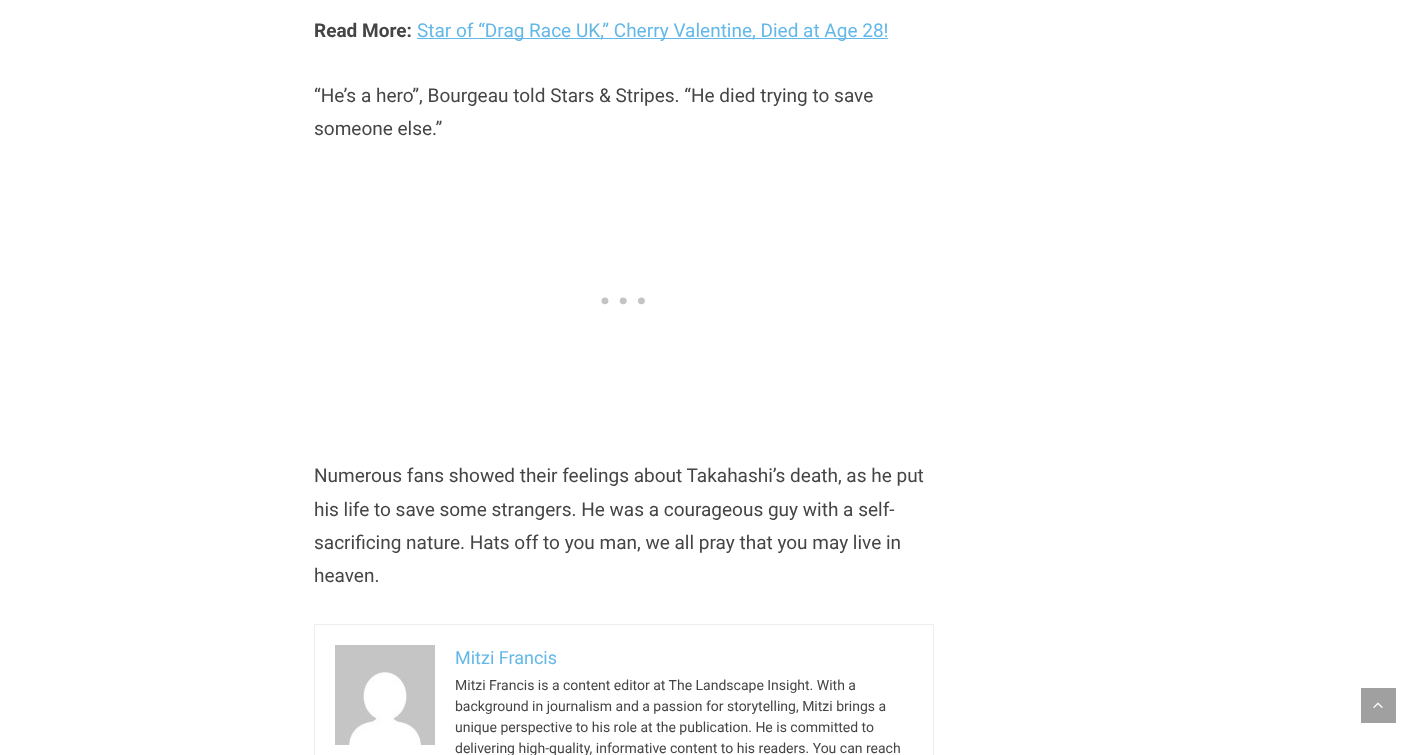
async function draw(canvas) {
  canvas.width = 1428;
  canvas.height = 755;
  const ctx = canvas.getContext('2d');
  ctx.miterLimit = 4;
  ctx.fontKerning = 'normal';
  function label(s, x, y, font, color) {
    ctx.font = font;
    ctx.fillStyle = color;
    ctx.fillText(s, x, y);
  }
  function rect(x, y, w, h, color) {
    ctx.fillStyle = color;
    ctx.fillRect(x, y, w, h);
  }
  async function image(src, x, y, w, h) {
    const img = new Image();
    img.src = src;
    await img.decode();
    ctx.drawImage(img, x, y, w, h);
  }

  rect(0, 0, 1428, 755, '#fff');
  label('Read More:', 314, 37, 'bold 19px Roboto', '#454545');
  rect(417, 38, 471, 1, '#63b8e8');
  label('Star of “Drag Race UK,” Cherry Valentine, Died at Age 28!', 417, 37, '19px Roboto', '#63b8e8');
  label('“He’s a hero”, Bourgeau told Stars & Stripes. “He died trying to save', 314, 102, '19px Roboto', '#454545');
  label('someone else.”', 314, 135, '19px Roboto', '#454545');
  ctx.letterSpacing = '2px';
  label('···', 597, 323, '62px Roboto', '#c4c4c4');
  ctx.letterSpacing = '0px';
  label('Numerous fans showed their feelings about Takahashi’s death, as he put', 314, 482, '19px Roboto', '#454545');
  label('his life to save some strangers. He was a courageous guy with a self-', 314, 516, '19px Roboto', '#454545');
  label('sacrificing nature. Hats off to you man, we all pray that you may live in', 314, 549, '19px Roboto', '#454545');
  label('heaven.', 314, 582, '19px Roboto', '#454545');
  ctx.strokeStyle = '#eee';
  ctx.strokeRect(314.5, 624.5, 619, 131);
  await image('assets/img1.png', 335, 645, 100, 100);
  label('Mitzi Francis', 455, 664, '18px Roboto', '#63b8e8');
  label('Mitzi Francis is a content editor at The Landscape Insight. With a', 455, 690, '14px Roboto', '#454545');
  label('background in journalism and a passion for storytelling, Mitzi brings a', 455, 711, '14px Roboto', '#454545');
  label('unique perspective to his role at the publication. He is committed to', 455, 732, '14px Roboto', '#454545');
  label('delivering high-quality, informative content to his readers. You can reach', 455, 753, '14px Roboto', '#454545');
  rect(1361, 688, 35, 35, '#a0a0a0');
  await image('assets/img2.png', 1373, 702, 10, 6);
}

draw(document.querySelector('canvas'));
